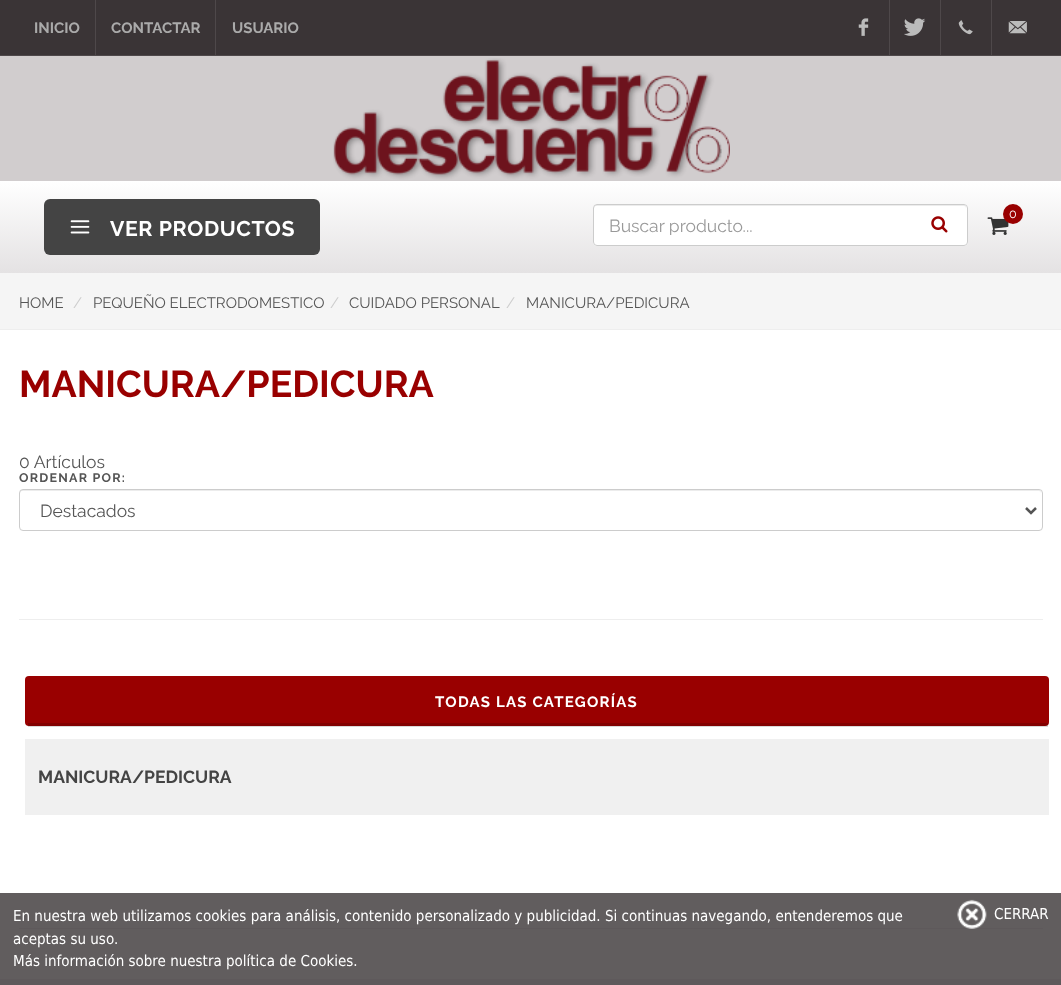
async function draw(canvas) {
  canvas.width = 1061;
  canvas.height = 985;
  const ctx = canvas.getContext('2d');
  ctx.miterLimit = 4;
  ctx.fontKerning = 'normal';
  function label(s, x, y, font, color) {
    ctx.font = font;
    ctx.fillStyle = color;
    ctx.fillText(s, x, y);
  }
  function rect(x, y, w, h, color) {
    ctx.fillStyle = color;
    ctx.fillRect(x, y, w, h);
  }
  function roundedRect(x, y, w, h, r, color) {
    ctx.fillStyle = color;
    ctx.beginPath();
    ctx.roundRect(x, y, w, h, r);
    ctx.fill();
  }
  async function image(src, x, y, w, h) {
    const img = new Image();
    img.src = src;
    await img.decode();
    ctx.drawImage(img, x, y, w, h);
  }
  let gradient, path;

  rect(0, 0, 1061, 985, '#d1cdce');
  rect(0, 0, 1061, 55, '#3a3436');
  rect(0, 55, 1061, 1, '#4e484a');
  label('INICIO', 34, 33, 'bold 15px Raleway', '#aaa');
  rect(95, 0, 1, 55, '#4e484a');
  label('CONTACTAR', 111, 33, 'bold 15px Raleway', '#aaa');
  rect(215, 0, 1, 55, '#4e484a');
  label('USUARIO', 232, 33, 'bold 15px Raleway', '#aaa');
  await image('assets/img1.png', 858, 18, 11, 18);
  rect(889, 0, 1, 55, '#4e484a');
  await image('assets/img2.png', 904, 18, 22, 18);
  rect(940, 0, 1, 55, '#4e484a');
  await image('assets/img3.png', 958, 20, 15, 15);
  rect(991, 0, 1, 55, '#4e484a');
  await image('assets/img4.png', 1008, 21, 19, 13);
  await image('assets/img5.png', 333, 58, 397, 122);
  gradient = ctx.createLinearGradient(531, 181, 531, 273);
  gradient.addColorStop(0, '#fff');
  gradient.addColorStop(1, '#e4e2e3');
  ctx.fillStyle = gradient;
  ctx.fillRect(0, 181, 1061, 92);
  await image('assets/img6.png', 987, 217, 22, 18);
  ctx.fillStyle = '#900';
  ctx.beginPath();
  ctx.arc(1013, 214, 10, 0, 2 * Math.PI);
  ctx.fill();
  label('0', 1009, 218, '12.5px Raleway', '#fff');
  roundedRect(44, 199, 276, 56, 6, '#444');
  await image('assets/img7.png', 70, 220, 20, 14);
  ctx.letterSpacing = '0.6px';
  label('VER PRODUCTOS', 110, 236, 'bold 21.25px Raleway', '#fff');
  roundedRect(593, 204, 375, 42, 4, '#fff');
  ctx.fillStyle = '#ececec';
  path = new Path2D('M596 206H964C965 206 966 207 966 209C966 207 966 205 964 205H596C594 205 594 207 594 209C594 207 595 206 596 206Z');
  ctx.fill(path);
  ctx.beginPath();
  ctx.roundRect(593.5, 204.5, 374, 41, 3.5);
  ctx.strokeStyle = '#ccc';
  ctx.stroke();
  ctx.save();
  ctx.beginPath();
  ctx.rect(609, 215, 342, 20);
  ctx.clip();
  ctx.letterSpacing = '0px';
  label('Buscar producto...', 609, 232, '17.5px Raleway', '#999');
  ctx.restore();
  await image('assets/img8.png', 931, 216, 17, 17);
  rect(0, 273, 1061, 56, '#f5f5f5');
  rect(0, 329, 1061, 1, '#eee');
  ctx.letterSpacing = '0px';
  label('HOME', 19, 308, '15px Raleway', '#555');
  label('/', 73, 308, '15px Raleway', '#ccc');
  label('PEQUEÑO ELECTRODOMESTICO', 93, 308, '15px Raleway', '#555');
  label('/', 330, 308, '15px Raleway', '#ccc');
  label('CUIDADO PERSONAL', 349, 308, '15px Raleway', '#555');
  label('/', 506, 308, '15px Raleway', '#ccc');
  label('MANICURA/PEDICURA', 526, 308, '15px Raleway', '#555');
  rect(0, 330, 1061, 563, '#fff');
  rect(0, 893, 1061, 86, '#615d5e');
  rect(19, 619, 1024, 1, '#eee');
  label('MANICURA/PEDICURA', 19, 397, 'bold 37.5px Raleway', '#900');
  label('0 Artículos', 19, 468, '17.5px Raleway', '#555');
  ctx.letterSpacing = '1.25px';
  label('ORDENAR POR:', 19, 482, 'bold 12.5px Raleway', '#555');
  ctx.fillStyle = '#ececec';
  path = new Path2D('M22 491H1039C1040 491 1041 492 1041 494C1041 492 1041 490 1038 490H22C20 490 20 492 20 494C20 492 21 491 22 491Z');
  ctx.fill(path);
  ctx.beginPath();
  ctx.roundRect(19.5, 489.5, 1023, 41, 3.5);
  ctx.stroke();
  path = new Path2D('M1026 508L1031 513L1036 508');
  ctx.strokeStyle = '#555';
  ctx.lineWidth = 2.5;
  ctx.stroke(path);
  ctx.letterSpacing = '0px';
  label('Destacados', 40, 517, '17.5px Raleway', '#555');
  rect(19, 928, 1024, 1, '#5e595b');
  roundedRect(25, 676, 1024, 50, 4, '#900');
  rect(28, 723, 1020, 4, '#00000026');
  ctx.letterSpacing = '1.25px';
  label('TODAS LAS CATEGORÍAS', 435, 707, 'bold 15px Raleway', '#fff');
  rect(25, 739, 1024, 76, '#f0f0f0');
  ctx.letterSpacing = '0px';
  label('MANICURA/PEDICURA', 38, 783, 'bold 17.5px Raleway', '#444');
  rect(0, 979, 1061, 6, '#5e595b');
  label('En nuestra web utilizamos cookies para análisis, contenido personalizado y publicidad. Si continuas navegando, entenderemos que', 13, 921, '15px DejaVu Sans', '#fff');
  label('aceptas su uso.', 13, 944, '15px DejaVu Sans', '#fff');
  label('Más información sobre nuestra política de Cookies.', 13, 966, '15px DejaVu Sans', '#fff');
  await image('assets/img9.png', 957, 899, 30, 30);
  label('CERRAR', 994, 919, '15px DejaVu Sans', '#fff');
}

draw(document.querySelector('canvas'));
